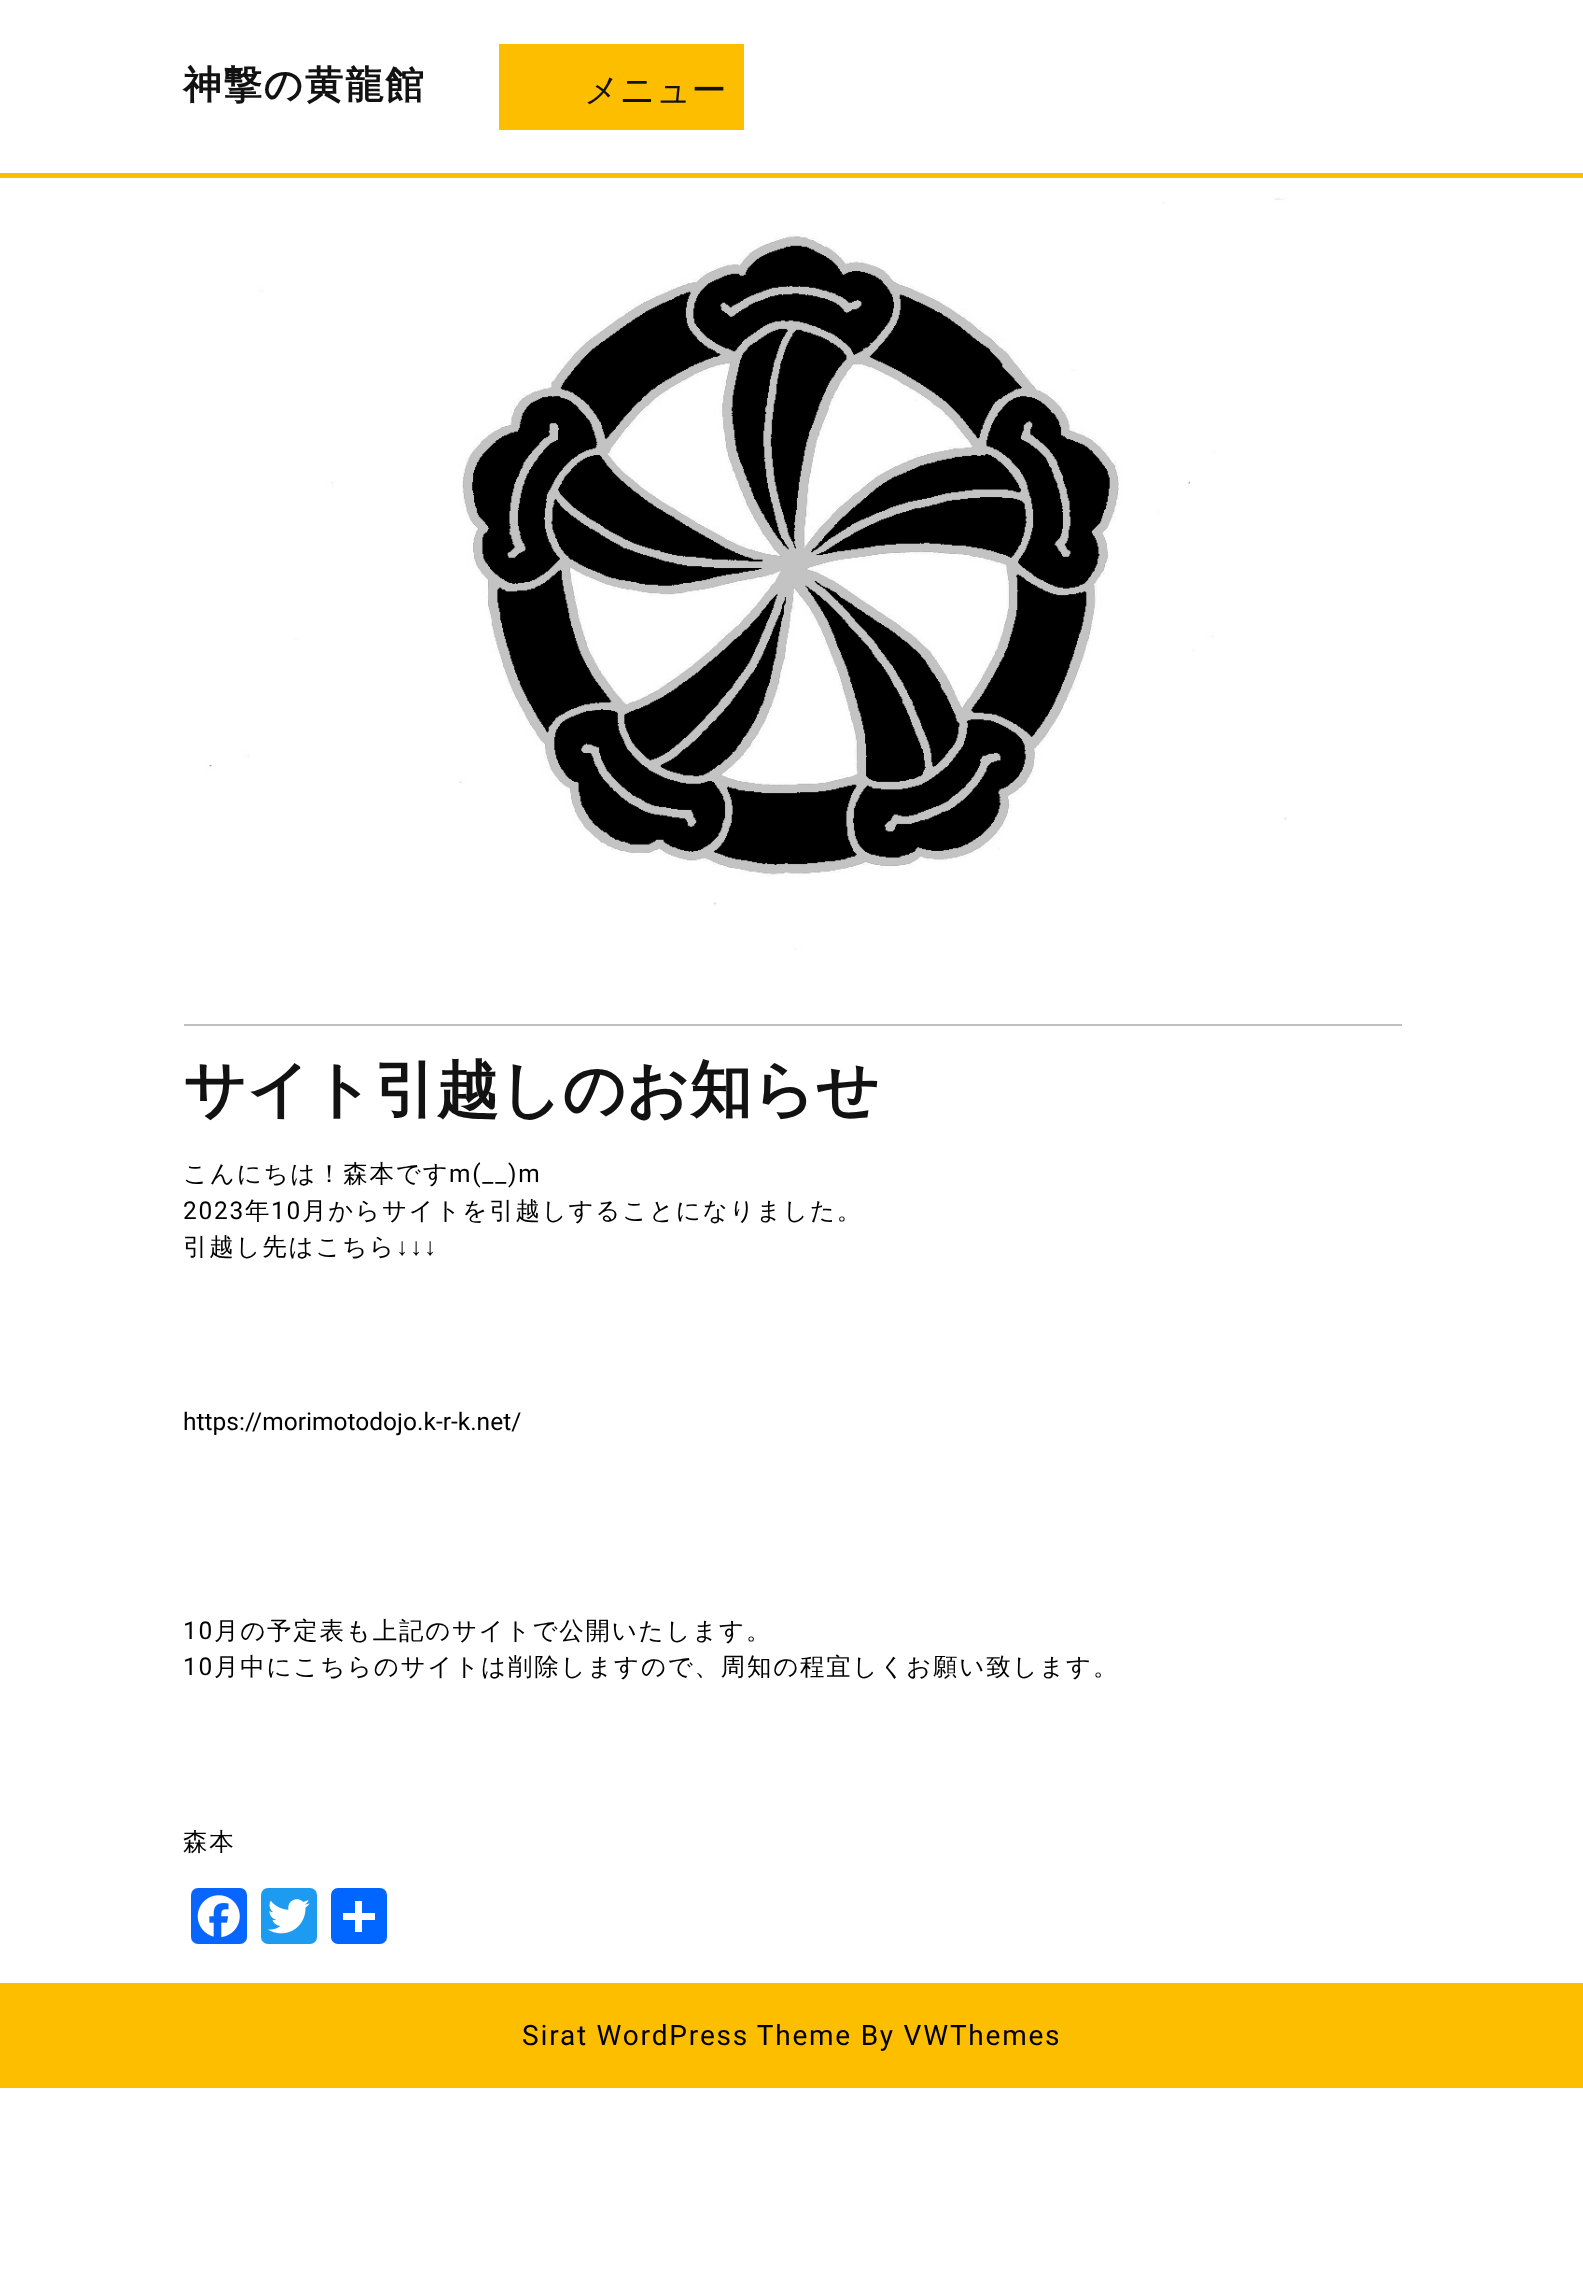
async function draw(canvas) {
  canvas.width = 1583;
  canvas.height = 2269;
  const ctx = canvas.getContext('2d');
  ctx.miterLimit = 4;
  ctx.fontKerning = 'normal';
  function label(s, x, y, font, color) {
    ctx.font = font;
    ctx.fillStyle = color;
    ctx.fillText(s, x, y);
  }
  function rect(x, y, w, h, color) {
    ctx.fillStyle = color;
    ctx.fillRect(x, y, w, h);
  }
  function roundedRect(x, y, w, h, r, color) {
    ctx.fillStyle = color;
    ctx.beginPath();
    ctx.roundRect(x, y, w, h, r);
    ctx.fill();
  }
  async function image(src, x, y, w, h) {
    const img = new Image();
    img.src = src;
    await img.decode();
    ctx.drawImage(img, x, y, w, h);
  }

  rect(0, 0, 1583, 2269, '#fff');
  rect(0, 173, 1583, 5, '#febe00');
  ctx.letterSpacing = '1.75px';
  label('神撃の黄龍館', 183, 98, 'bold 38.5px WenQuanYi Zen Hei', '#121212');
  rect(499, 44, 245, 86, '#febe00');
  ctx.letterSpacing = '0px';
  label('メニュー', 584, 102, '500 35px WenQuanYi Zen Hei', '#121212');
  await image('assets/img1.png', 206, 197, 1082, 753);
  rect(184, 1024, 1218, 2, '#bfbfbf');
  label('サイト引越しのお知らせ', 183, 1111, 'bold 62.25px WenQuanYi Zen Hei', '#121212');
  ctx.letterSpacing = '1.75px';
  label('こんにちは！森本です', 183, 1182, '500 24.5px WenQuanYi Zen Hei', '#000');
  label('m(__)m', 449, 1182, '24.5px Heebo', '#000');
  label('2023', 183, 1219, '24.5px Heebo', '#000');
  label('年', 245, 1219, '500 24.5px WenQuanYi Zen Hei', '#000');
  label('10', 271, 1219, '24.5px Heebo', '#000');
  label('月からサイトを引越しすることになりました。', 302, 1219, '500 24.5px WenQuanYi Zen Hei', '#000');
  label('引越し先はこちら', 183, 1255, '500 24.5px WenQuanYi Zen Hei', '#000');
  label('↓↓↓', 396, 1255, '24.5px Liberation Sans', '#000');
  ctx.letterSpacing = '0px';
  label('https://morimotodojo.k-r-k.net/', 183, 1430, '24.5px Heebo', '#000');
  ctx.letterSpacing = '1.75px';
  label('10', 183, 1639, '24.5px Heebo', '#000');
  label('月の予定表も上記のサイトで公開いたします。', 214, 1639, '500 24.5px WenQuanYi Zen Hei', '#000');
  label('10', 183, 1675, '24.5px Heebo', '#000');
  label('月中にこちらのサイトは削除しますので、周知の程宜しくお願い致します。', 214, 1675, '500 24.5px WenQuanYi Zen Hei', '#000');
  label('森本', 183, 1850, '500 24.5px WenQuanYi Zen Hei', '#000');
  roundedRect(191, 1888, 56, 56, 7, '#0866ff');
  await image('assets/img2.png', 197, 1895, 43, 43);
  roundedRect(261, 1888, 56, 56, 7, '#1d9bf0');
  await image('assets/img3.png', 268, 1899, 42, 35);
  roundedRect(331, 1888, 56, 56, 7, '#0166ff');
  rect(355, 1901, 7, 31, '#fff');
  rect(343, 1913, 32, 7, '#fff');
  rect(0, 1983, 1583, 105, '#febe00');
  label('Sirat WordPress Theme By VWThemes', 522, 2045, '28px Heebo', '#000');
}

draw(document.querySelector('canvas'));
